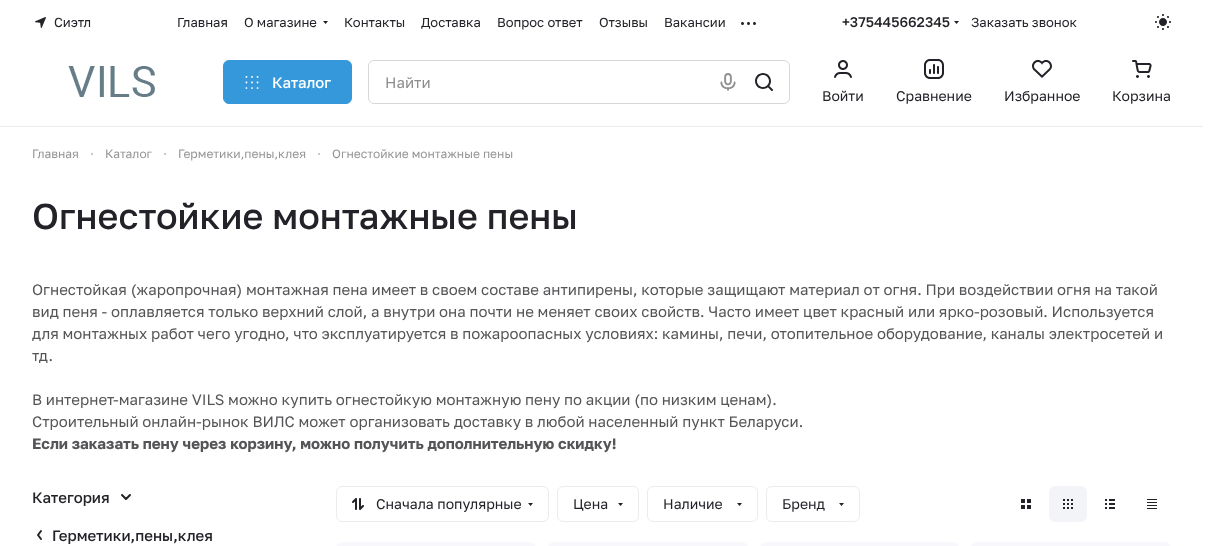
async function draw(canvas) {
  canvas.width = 1209;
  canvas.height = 546;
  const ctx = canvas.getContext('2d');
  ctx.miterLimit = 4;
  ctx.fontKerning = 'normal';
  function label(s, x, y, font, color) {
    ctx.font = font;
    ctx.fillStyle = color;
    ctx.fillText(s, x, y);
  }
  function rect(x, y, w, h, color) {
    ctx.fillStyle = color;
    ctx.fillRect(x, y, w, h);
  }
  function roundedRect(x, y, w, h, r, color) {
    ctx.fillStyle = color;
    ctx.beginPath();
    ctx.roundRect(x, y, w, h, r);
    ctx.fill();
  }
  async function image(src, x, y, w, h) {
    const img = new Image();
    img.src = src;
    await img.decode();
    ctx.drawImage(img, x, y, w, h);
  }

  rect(0, 0, 1209, 546, '#fff');
  rect(0, 126, 1203, 1, '#ededed');
  await image('assets/img1.png', 35, 17, 11, 11);
  label('Сиэтл', 54, 27, '13px Golos Text', '#222228');
  label('Главная', 177, 27, '13px Golos Text', '#222228');
  label('О магазине', 244, 27, '13px Golos Text', '#222228');
  await image('assets/img2.png', 323, 21, 5, 3);
  label('Контакты', 344, 27, '13px Golos Text', '#222228');
  label('Доставка', 421, 27, '13px Golos Text', '#222228');
  label('Вопрос ответ', 497, 27, '13px Golos Text', '#222228');
  label('Отзывы', 599, 27, '13px Golos Text', '#222228');
  label('Вакансии', 664, 27, '13px Golos Text', '#222228');
  await image('assets/img3.png', 741, 22, 15, 3);
  label('+375445662345', 842, 27, '500 14px Golos Text', '#222228');
  await image('assets/img2.png', 954, 21, 5, 3);
  label('Заказать звонок', 971, 27, '13px Golos Text', '#222228');
  await image('assets/img4.png', 1155, 14, 16, 16);
  await image('assets/img5.png', 68, 66, 87, 31);
  ctx.fillStyle = '#3498db';
  ctx.beginPath();
  ctx.roundRect(223.5, 60.5, 128, 43, 5.5);
  ctx.fill();
  ctx.strokeStyle = '#3498db';
  ctx.stroke();
  await image('assets/img6.png', 245, 76, 14, 13);
  label('Каталог', 272, 88, '500 15px Golos Text', '#fff');
  ctx.beginPath();
  ctx.roundRect(368.5, 60.5, 421, 43, 5.5);
  ctx.strokeStyle = '#d7d8da';
  ctx.stroke();
  label('Найти', 385, 88, '15px Golos Text', '#8d8d8d');
  await image('assets/img7.png', 720, 73, 16, 18);
  await image('assets/img8.png', 755, 73, 18, 18);
  await image('assets/img9.png', 834, 60, 18, 18);
  label('Войти', 822, 101, '14px Golos Text', '#222228');
  await image('assets/img10.png', 924, 59, 20, 20);
  label('Сравнение', 896, 101, '14px Golos Text', '#222228');
  await image('assets/img11.png', 1032, 60, 20, 18);
  label('Избранное', 1004, 101, '14px Golos Text', '#222228');
  await image('assets/img12.png', 1132, 60, 20, 18);
  label('Корзина', 1112, 101, '14px Golos Text', '#222228');
  label('Главная', 32, 158, '12px Golos Text', '#959598');
  ctx.fillStyle = '#b8b8b9';
  ctx.beginPath();
  ctx.arc(92, 154, 1, 0, 2 * Math.PI);
  ctx.fill();
  label('Каталог', 105, 158, '12px Golos Text', '#959598');
  ctx.fillStyle = '#b8b8b9';
  ctx.beginPath();
  ctx.arc(165, 154, 1, 0, 2 * Math.PI);
  ctx.fill();
  label('Герметики,пены,клея', 178, 158, '12px Golos Text', '#959598');
  ctx.fillStyle = '#b8b8b9';
  ctx.beginPath();
  ctx.arc(319, 154, 1, 0, 2 * Math.PI);
  ctx.fill();
  label('Огнестойкие монтажные пены', 332, 158, '12px Golos Text', '#959598');
  label('Огнестойкие монтажные пены', 32, 229, '500 36px Golos Text', '#222228');
  label('Огнестойкая (жаропрочная) монтажная пена имеет в своем составе антипирены, которые защищают материал от огня. При воздействии огня на такой', 32, 295, '15px Golos Text', '#555558');
  label('вид пеня - оплавляется только верхний слой, а внутри она почти не меняет своих свойств. Часто имеет цвет красный или ярко-розовый. Используется', 32, 317, '15px Golos Text', '#555558');
  label('для монтажных работ чего угодно, что эксплуатируется в пожароопасных условиях: камины, печи, отопительное оборудование, каналы электросетей и', 32, 339, '15px Golos Text', '#555558');
  label('тд.', 32, 361, '15px Golos Text', '#555558');
  label('В интернет-магазине VILS можно купить огнестойкую монтажную пену по акции (по низким ценам).', 32, 405, '15px Golos Text', '#555558');
  label('Строительный онлайн-рынок ВИЛС может организовать доставку в любой населенный пункт Беларуси.', 32, 427, '15px Golos Text', '#555558');
  label('Если заказать пену через корзину, можно получить дополнительную скидку!', 32, 449, 'bold 15px Golos Text', '#555558');
  label('Категория', 32, 503, '500 15px Golos Text', '#222228');
  await image('assets/img13.png', 121, 494, 10, 6);
  await image('assets/img14.png', 37, 530, 5, 10);
  label('Герметики,пены,клея', 52, 541, '500 15px Golos Text', '#222228');
  ctx.beginPath();
  ctx.roundRect(336.5, 486.5, 212, 35, 5.5);
  ctx.strokeStyle = '#ebecef';
  ctx.stroke();
  await image('assets/img15.png', 352, 498, 12, 12);
  label('Сначала популярные', 376, 509, '14px Golos Text', '#222228');
  await image('assets/img2.png', 528, 503, 5, 3);
  ctx.beginPath();
  ctx.roundRect(557.5, 486.5, 81, 35, 5.5);
  ctx.stroke();
  label('Цена', 573, 509, '14px Golos Text', '#222228');
  await image('assets/img2.png', 618, 503, 5, 3);
  ctx.beginPath();
  ctx.roundRect(647.5, 486.5, 110, 35, 5.5);
  ctx.stroke();
  label('Наличие', 663, 509, '14px Golos Text', '#222228');
  await image('assets/img2.png', 737, 503, 5, 3);
  ctx.beginPath();
  ctx.roundRect(766.5, 486.5, 93, 35, 5.5);
  ctx.stroke();
  label('Бренд', 782, 509, '14px Golos Text', '#222228');
  await image('assets/img2.png', 839, 503, 5, 3);
  await image('assets/img16.png', 1021, 499, 10, 10);
  roundedRect(1049, 486, 38, 36, 6, '#f3f4f7');
  await image('assets/img17.png', 1063, 499, 10, 10);
  await image('assets/img18.png', 1105, 499, 10, 10);
  await image('assets/img19.png', 1147, 499, 10, 10);
  roundedRect(336, 542, 200, 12, 8, '#f8f8fc');
  roundedRect(548, 542, 200, 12, 8, '#f8f8fc');
  roundedRect(760, 542, 199, 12, 8, '#f8f8fc');
  roundedRect(971, 542, 200, 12, 8, '#f8f8fc');
}

draw(document.querySelector('canvas'));
